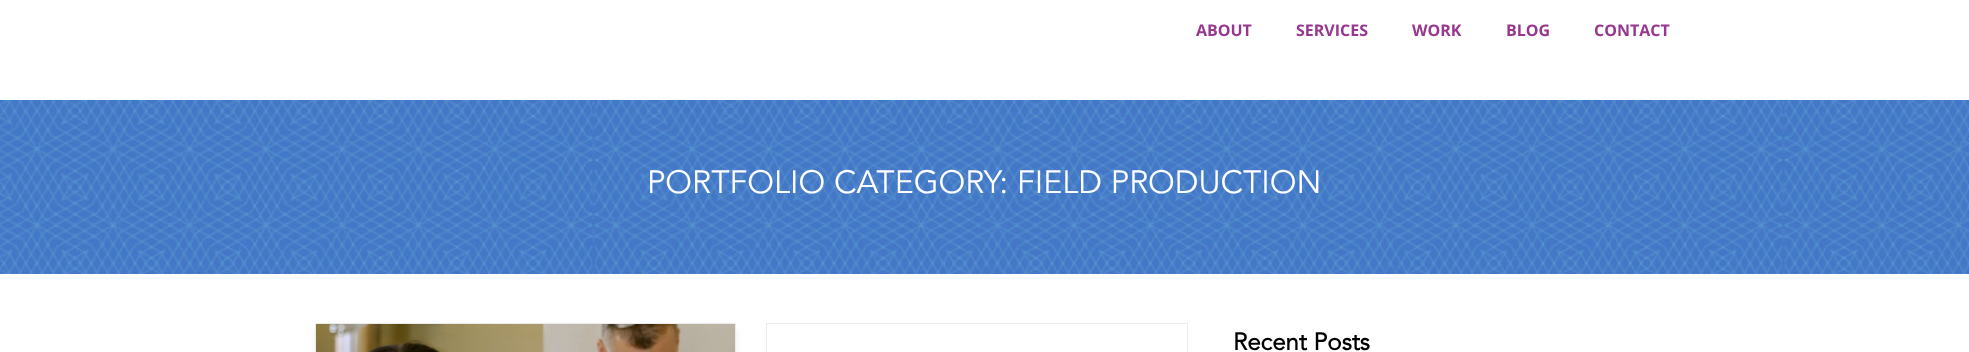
async function draw(canvas) {
  canvas.width = 1969;
  canvas.height = 352;
  const ctx = canvas.getContext('2d');
  ctx.miterLimit = 4;
  ctx.fontKerning = 'normal';
  function label(s, x, y, font, color) {
    ctx.font = font;
    ctx.fillStyle = color;
    ctx.fillText(s, x, y);
  }
  function rect(x, y, w, h, color) {
    ctx.fillStyle = color;
    ctx.fillRect(x, y, w, h);
  }
  async function image(src, x, y, w, h) {
    const img = new Image();
    img.src = src;
    await img.decode();
    ctx.drawImage(img, x, y, w, h);
  }

  rect(0, 0, 1969, 352, '#fff');
  label('ABOUT', 1196, 36, 'bold 16px Open Sans', '#97378f');
  label('SERVICES', 1296, 36, 'bold 16px Open Sans', '#97378f');
  label('WORK', 1412, 36, 'bold 16px Open Sans', '#97378f');
  label('BLOG', 1506, 36, 'bold 16px Open Sans', '#97378f');
  label('CONTACT', 1594, 36, 'bold 16px Open Sans', '#97378f');
  await image('assets/img1.png', 0, 100, 1969, 174);
  label('PORTFOLIO CATEGORY: FIELD PRODUCTION', 647, 193, '32px Avenir', '#fff');
  ctx.fillStyle = '#eee';
  ctx.filter = 'blur(4px)';
  ctx.beginPath();
  ctx.rect(315, 329, 421, 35);
  ctx.fill();
  ctx.filter = 'none';
  ctx.strokeStyle = '#ebebeb';
  ctx.strokeRect(315.5, 323.5, 420, 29);
  await image('assets/img2.png', 316, 324, 419, 28);
  ctx.strokeRect(766.5, 323.5, 421, 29);
  label('Recent Posts', 1233, 350, 'bold 24px Avenir', '#000');
}

draw(document.querySelector('canvas'));
